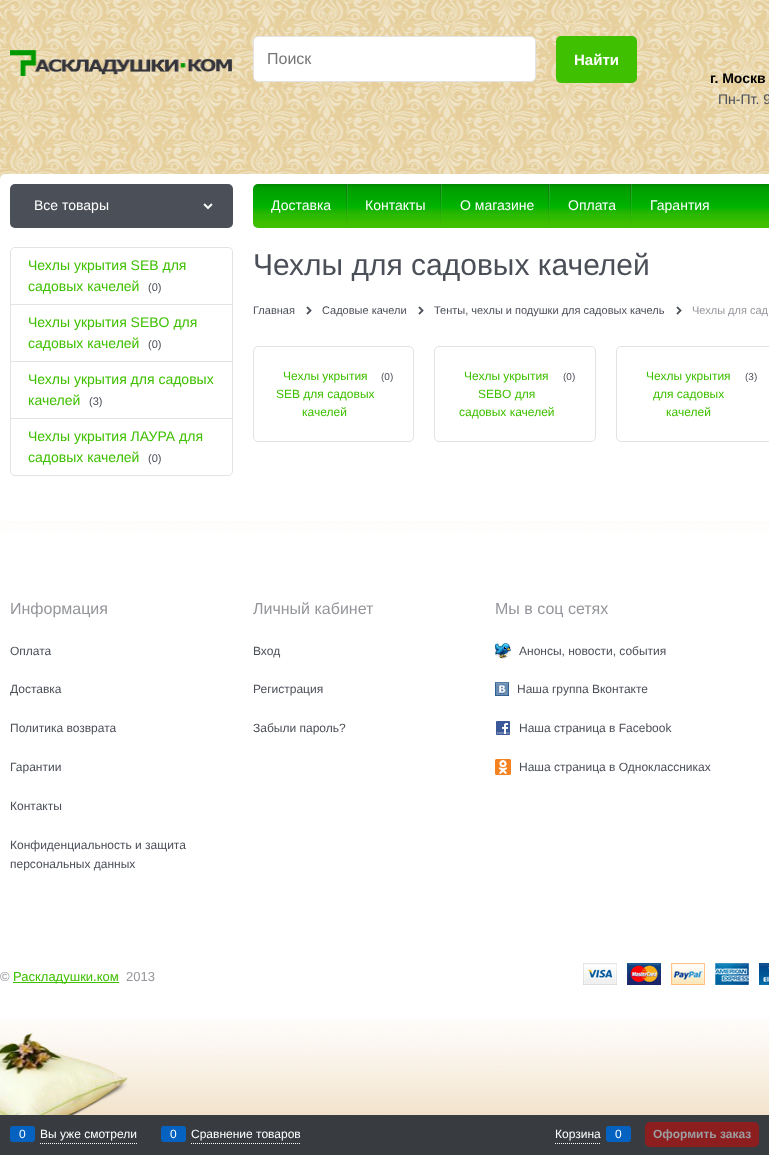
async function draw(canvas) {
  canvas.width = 769;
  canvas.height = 1155;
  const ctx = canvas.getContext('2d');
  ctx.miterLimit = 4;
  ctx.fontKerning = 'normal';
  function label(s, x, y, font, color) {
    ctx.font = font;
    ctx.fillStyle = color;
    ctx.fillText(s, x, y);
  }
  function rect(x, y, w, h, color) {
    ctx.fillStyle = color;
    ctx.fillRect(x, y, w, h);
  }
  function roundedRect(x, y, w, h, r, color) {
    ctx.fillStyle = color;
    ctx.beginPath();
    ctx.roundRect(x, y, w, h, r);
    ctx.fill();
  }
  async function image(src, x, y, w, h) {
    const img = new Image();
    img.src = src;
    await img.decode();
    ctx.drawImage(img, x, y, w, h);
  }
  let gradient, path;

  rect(0, 0, 769, 1155, '#fff');
  await image('assets/img1.png', 0, 0, 769, 535);
  gradient = ctx.createLinearGradient(385, 500, 385, 600);
  gradient.addColorStop(0, '#ffffff00');
  gradient.addColorStop(0.4, '#fff');
  gradient.addColorStop(0.6, '#fff');
  gradient.addColorStop(1, '#ffffff00');
  ctx.fillStyle = gradient;
  ctx.fillRect(0, 516, 769, 19);
  await image('assets/img2.png', 10, 50, 222, 26);
  ctx.fillStyle = '#fff';
  ctx.beginPath();
  ctx.roundRect(253.5, 36.5, 282, 45, 4.5);
  ctx.fill();
  ctx.strokeStyle = '#e2e3e4';
  ctx.stroke();
  label('Поиск', 267, 64, '16px Liberation Sans', '#757575');
  roundedRect(556, 36, 81, 47, 5, '#3fc001');
  label('Найти', 574, 65, 'bold 15px Liberation Sans', '#fff');
  label('г. Москв', 710, 83, 'bold 14px Liberation Sans', '#000');
  label('Пн-Пт. 9', 718, 104, '14px Liberation Sans', '#4b4f58');
  roundedRect(0, 174, 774, 347, 5, '#fff');
  roundedRect(10, 184, 223, 44, 5, '#4b4f58');
  label('Все товары', 34, 210, '14px Liberation Sans', '#fff');
  await image('assets/img3.png', 203, 203, 10, 7);
  gradient = ctx.createLinearGradient(607, 184, 607, 228);
  gradient.addColorStop(0, '#008400');
  gradient.addColorStop(0.08, '#019a01');
  gradient.addColorStop(0.11, '#009e00');
  gradient.addColorStop(0.51, '#00b201');
  gradient.addColorStop(0.54, '#04b300');
  gradient.addColorStop(0.62, '#20b501');
  gradient.addColorStop(0.65, '#21b700');
  gradient.addColorStop(0.7, '#2eb802');
  gradient.addColorStop(0.78, '#2dbc00');
  gradient.addColorStop(0.84, '#3abc00');
  gradient.addColorStop(0.86, '#3ebf00');
  gradient.addColorStop(1, '#3fc001');
  ctx.fillStyle = gradient;
  ctx.beginPath();
  ctx.roundRect(253, 184, 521, 44, 5);
  ctx.fill();
  label('Доставка', 271, 210, '14px Liberation Sans', '#fff');
  gradient = ctx.createLinearGradient(348, 184, 348, 228);
  gradient.addColorStop(0, '#ffffff24');
  gradient.addColorStop(0.72, '#ffffff05');
  gradient.addColorStop(1, '#ffffff00');
  ctx.fillStyle = gradient;
  ctx.fillRect(347, 184, 1, 31);
  gradient = ctx.createLinearGradient(347, 184, 347, 228);
  gradient.addColorStop(0, '#39393963');
  gradient.addColorStop(0.17, '#39393954');
  gradient.addColorStop(0.61, '#3939391f');
  gradient.addColorStop(0.96, '#39393903');
  gradient.addColorStop(0.98, '#ffffff03');
  gradient.addColorStop(1, '#ffffff00');
  ctx.fillStyle = gradient;
  ctx.fillRect(346, 184, 1, 44);
  label('Контакты', 365, 210, '14px Liberation Sans', '#fff');
  gradient = ctx.createLinearGradient(442, 184, 442, 228);
  gradient.addColorStop(0, '#ffffff24');
  gradient.addColorStop(0.72, '#ffffff05');
  gradient.addColorStop(1, '#ffffff00');
  ctx.fillStyle = gradient;
  ctx.fillRect(441, 184, 1, 31);
  gradient = ctx.createLinearGradient(441, 184, 441, 228);
  gradient.addColorStop(0, '#39393963');
  gradient.addColorStop(0.17, '#39393954');
  gradient.addColorStop(0.61, '#3939391f');
  gradient.addColorStop(0.96, '#39393903');
  gradient.addColorStop(0.98, '#ffffff03');
  gradient.addColorStop(1, '#ffffff00');
  ctx.fillStyle = gradient;
  ctx.fillRect(440, 184, 1, 44);
  label('О магазине', 460, 210, '14px Liberation Sans', '#fff');
  gradient = ctx.createLinearGradient(550, 184, 550, 228);
  gradient.addColorStop(0, '#ffffff24');
  gradient.addColorStop(0.72, '#ffffff05');
  gradient.addColorStop(1, '#ffffff00');
  ctx.fillStyle = gradient;
  ctx.fillRect(549, 184, 1, 31);
  gradient = ctx.createLinearGradient(549, 184, 549, 228);
  gradient.addColorStop(0, '#39393963');
  gradient.addColorStop(0.17, '#39393954');
  gradient.addColorStop(0.61, '#3939391f');
  gradient.addColorStop(0.96, '#39393903');
  gradient.addColorStop(0.98, '#ffffff03');
  gradient.addColorStop(1, '#ffffff00');
  ctx.fillStyle = gradient;
  ctx.fillRect(548, 184, 1, 44);
  label('Оплата', 568, 210, '14px Liberation Sans', '#fff');
  gradient = ctx.createLinearGradient(632, 184, 632, 228);
  gradient.addColorStop(0, '#ffffff24');
  gradient.addColorStop(0.72, '#ffffff05');
  gradient.addColorStop(1, '#ffffff00');
  ctx.fillStyle = gradient;
  ctx.fillRect(631, 184, 1, 31);
  gradient = ctx.createLinearGradient(631, 184, 631, 228);
  gradient.addColorStop(0, '#39393963');
  gradient.addColorStop(0.17, '#39393954');
  gradient.addColorStop(0.61, '#3939391f');
  gradient.addColorStop(0.96, '#39393903');
  gradient.addColorStop(0.98, '#ffffff03');
  gradient.addColorStop(1, '#ffffff00');
  ctx.fillStyle = gradient;
  ctx.fillRect(630, 184, 1, 44);
  label('Гарантия', 650, 210, '14px Liberation Sans', '#fff');
  ctx.beginPath();
  ctx.roundRect(10.5, 247.5, 222, 228, 4.5);
  ctx.stroke();
  rect(11, 304, 221, 1, '#e2e3e4');
  ctx.fillStyle = '#fff';
  ctx.beginPath();
  ctx.roundRect(11, 248, 221, 56, [5, 5, 0, 0]);
  ctx.fill();
  label('Чехлы укрытия SEB для', 28, 270, '14px Liberation Sans', '#3fc001');
  label('садовых качелей', 28, 291, '14px Liberation Sans', '#3fc001');
  label('(0)', 148, 291, '11px Liberation Sans', '#4b4f58');
  rect(11, 361, 221, 1, '#e2e3e4');
  label('Чехлы укрытия SEBO для', 28, 327, '14px Liberation Sans', '#3fc001');
  label('садовых качелей', 28, 348, '14px Liberation Sans', '#3fc001');
  label('(0)', 148, 348, '11px Liberation Sans', '#4b4f58');
  rect(11, 418, 221, 1, '#e2e3e4');
  label('Чехлы укрытия для садовых', 28, 384, '14px Liberation Sans', '#3fc001');
  label('качелей', 28, 405, '14px Liberation Sans', '#3fc001');
  label('(3)', 89, 405, '11px Liberation Sans', '#4b4f58');
  ctx.fillStyle = '#fff';
  ctx.beginPath();
  ctx.roundRect(11, 419, 221, 56, [0, 0, 5, 5]);
  ctx.fill();
  label('Чехлы укрытия ЛАУРА для', 28, 441, '14px Liberation Sans', '#3fc001');
  label('садовых качелей', 28, 462, '14px Liberation Sans', '#3fc001');
  label('(0)', 148, 462, '11px Liberation Sans', '#4b4f58');
  label('Чехлы для садовых качелей', 253, 275, '30px Liberation Sans', '#4b4f58');
  label('Главная', 253, 314, '11px Liberation Sans', '#4b4f58');
  await image('assets/img4.png', 306, 306, 6, 9);
  label('Садовые качели', 322, 314, '11px Liberation Sans', '#4b4f58');
  await image('assets/img4.png', 418, 306, 6, 9);
  label('Тенты, чехлы и подушки для садовых качель', 434, 314, '11px Liberation Sans', '#4b4f58');
  await image('assets/img4.png', 676, 306, 6, 9);
  label('Чехлы для сад', 692, 314, '11px Liberation Sans', '#94969b');
  ctx.beginPath();
  ctx.roundRect(253.5, 346.5, 160, 95, 4.5);
  ctx.stroke();
  label('Чехлы укрытия', 283, 380, '12px Liberation Sans', '#3fc001');
  label('SEB для садовых', 276, 398, '12px Liberation Sans', '#3fc001');
  label('качелей', 302, 416, '12px Liberation Sans', '#3fc001');
  label('(0)', 381, 380, '10px Liberation Sans', '#4b4f58');
  ctx.beginPath();
  ctx.roundRect(434.5, 346.5, 161, 95, 4.5);
  ctx.stroke();
  label('Чехлы укрытия', 464, 380, '12px Liberation Sans', '#3fc001');
  label('SEBO для', 478, 398, '12px Liberation Sans', '#3fc001');
  label('садовых качелей', 459, 416, '12px Liberation Sans', '#3fc001');
  label('(0)', 563, 380, '10px Liberation Sans', '#4b4f58');
  ctx.beginPath();
  ctx.roundRect(616.5, 346.5, 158, 95, 4.5);
  ctx.stroke();
  label('Чехлы укрытия', 646, 380, '12px Liberation Sans', '#3fc001');
  label('для садовых', 653, 398, '12px Liberation Sans', '#3fc001');
  label('качелей', 666, 416, '12px Liberation Sans', '#3fc001');
  label('(3)', 745, 380, '10px Liberation Sans', '#4b4f58');
  label('Информация', 10, 614, '16px Liberation Sans', '#94969b');
  label('Оплата', 10, 655, '12px Liberation Sans', '#4b4f58');
  label('Доставка', 10, 693, '12px Liberation Sans', '#4b4f58');
  label('Политика возврата', 10, 732, '12px Liberation Sans', '#4b4f58');
  label('Гарантии', 10, 771, '12px Liberation Sans', '#4b4f58');
  label('Контакты', 10, 810, '12px Liberation Sans', '#4b4f58');
  label('Конфиденциальность и защита', 10, 849, '12px Liberation Sans', '#4b4f58');
  label('персональных данных', 10, 868, '12px Liberation Sans', '#4b4f58');
  label('Личный кабинет', 253, 614, '16px Liberation Sans', '#94969b');
  label('Вход', 253, 655, '12px Liberation Sans', '#4b4f58');
  label('Регистрация', 253, 693, '12px Liberation Sans', '#4b4f58');
  label('Забыли пароль?', 253, 732, '12px Liberation Sans', '#4b4f58');
  label('Мы в соц сетях', 495, 614, '16px Liberation Sans', '#94969b');
  await image('assets/img5.png', 495, 643, 16, 16);
  label('Анонсы, новости, события', 519, 655, '12px Liberation Sans', '#4b4f58');
  await image('assets/img6.png', 495, 682, 14, 14);
  label('Наша группа Вконтакте', 517, 693, '12px Liberation Sans', '#4b4f58');
  await image('assets/img7.png', 496, 721, 14, 14);
  label('Наша страница в Facebook', 519, 732, '12px Liberation Sans', '#4b4f58');
  await image('assets/img8.png', 495, 759, 16, 16);
  label('Наша страница в Одноклассниках', 519, 771, '12px Liberation Sans', '#4b4f58');
  label('©', 0, 981, '13px Liberation Sans', '#94969b');
  rect(13, 982, 106, 1, '#3fc001');
  label('Раскладушки.ком', 13, 981, '13px Liberation Sans', '#3fc001');
  label('2013', 126, 981, '13px Liberation Sans', '#94969b');
  await image('assets/img9.png', 583, 963, 186, 22);
  rect(0, 1115, 769, 40, '#383c40');
  path = new Path2D('M40 1143.5H137');
  ctx.strokeStyle = '#fff';
  ctx.setLineDash([1, 1]);
  ctx.stroke(path);
  roundedRect(10, 1126, 25, 16, 3, '#0662c1');
  label('0', 19, 1138, '12px Liberation Sans', '#fff');
  label('Вы уже смотрели', 40, 1138, '12px Liberation Sans', '#fff');
  path = new Path2D('M191 1143.5H300');
  ctx.stroke(path);
  roundedRect(161, 1126, 25, 16, 3, '#0662c1');
  label('0', 170, 1138, '12px Liberation Sans', '#fff');
  label('Сравнение товаров', 191, 1138, '12px Liberation Sans', '#fff');
  path = new Path2D('M555 1143.5H601');
  ctx.stroke(path);
  label('Корзина', 555, 1138, '12px Liberation Sans', '#fff');
  roundedRect(606, 1126, 25, 16, 3, '#0662c1');
  label('0', 615, 1138, '12px Liberation Sans', '#fff');
  roundedRect(645, 1122, 114, 25, 5, '#8d1e20');
  label('Оформить заказ', 653, 1138, 'bold 12px Liberation Sans', '#9c9ea0');
  await image('assets/img10.png', 0, 1018, 769, 97);
}

draw(document.querySelector('canvas'));
